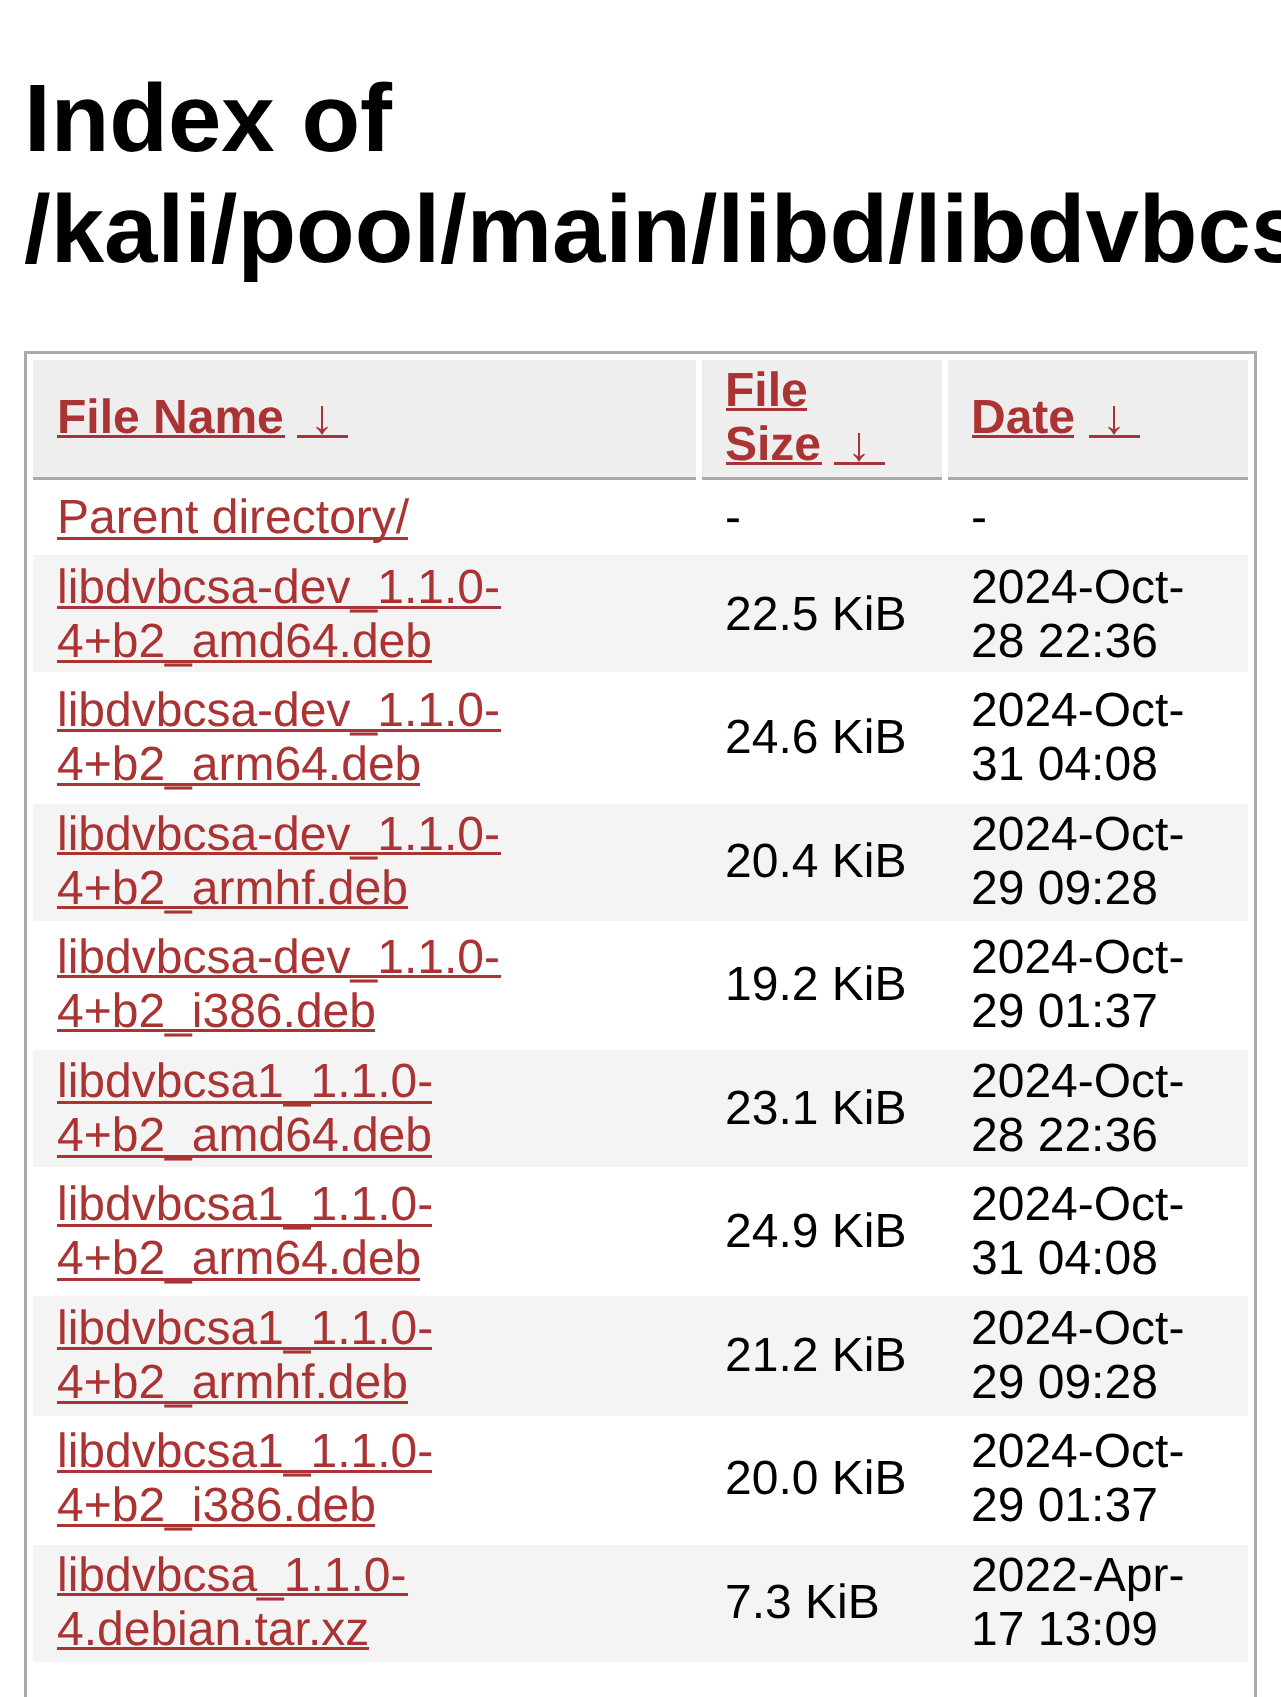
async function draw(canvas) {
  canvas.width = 1281;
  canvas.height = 1697;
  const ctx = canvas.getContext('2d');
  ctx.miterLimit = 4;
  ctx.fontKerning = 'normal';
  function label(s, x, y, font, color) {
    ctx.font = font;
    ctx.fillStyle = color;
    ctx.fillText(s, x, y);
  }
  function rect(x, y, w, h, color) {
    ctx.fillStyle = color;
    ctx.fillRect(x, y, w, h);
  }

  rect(0, 0, 1281, 1697, '#fff');
  label('Index of', 24, 151, 'bold 96px Liberation Sans', '#000');
  label('/kali/pool/main/libd/libdvbcs', 24, 262, 'bold 96px Liberation Sans', '#000');
  ctx.strokeStyle = '#aaa';
  ctx.lineWidth = 3;
  ctx.strokeRect(25.5, 352.5, 1230, 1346);
  rect(33, 360, 663, 117, '#eee');
  rect(33, 477, 663, 3, '#aaa');
  label('File Name', 57, 433, 'bold 48px Liberation Sans', '#a33');
  rect(57, 435, 228, 3, '#a33');
  label('↓', 310, 433, 'bold 48px Liberation Sans', '#a33');
  rect(297, 435, 51, 3, '#a33');
  rect(702, 360, 240, 117, '#eee');
  rect(702, 477, 240, 3, '#aaa');
  label('File', 725, 406, 'bold 48px Liberation Sans', '#a33');
  rect(726, 408, 81, 3, '#a33');
  label('Size', 725, 460, 'bold 48px Liberation Sans', '#a33');
  rect(726, 462, 96, 3, '#a33');
  label('↓', 847, 460, 'bold 48px Liberation Sans', '#a33');
  rect(834, 462, 51, 3, '#a33');
  rect(948, 360, 300, 117, '#eee');
  rect(948, 477, 300, 3, '#aaa');
  label('Date', 971, 433, 'bold 48px Liberation Sans', '#a33');
  rect(972, 435, 102, 3, '#a33');
  label('↓', 1102, 433, 'bold 48px Liberation Sans', '#a33');
  rect(1089, 435, 51, 3, '#a33');
  rect(57, 537, 351, 3, '#a33');
  label('Parent directory/', 57, 533, '48px Liberation Sans', '#a33');
  label('-', 725, 533, '48px Liberation Sans', '#000');
  label('-', 971, 533, '48px Liberation Sans', '#000');
  rect(33, 555, 1215, 117, '#f4f4f4');
  rect(57, 606, 444, 3, '#a33');
  label('libdvbcsa-dev_1.1.0-', 57, 603, '48px Liberation Sans', '#a33');
  rect(57, 660, 375, 3, '#a33');
  label('4+b2_amd64.deb', 57, 657, '48px Liberation Sans', '#a33');
  label('22.5 KiB', 725, 630, '48px Liberation Sans', '#000');
  label('2024-Oct-', 971, 603, '48px Liberation Sans', '#000');
  label('28 22:36', 971, 657, '48px Liberation Sans', '#000');
  rect(57, 729, 444, 3, '#a33');
  label('libdvbcsa-dev_1.1.0-', 57, 726, '48px Liberation Sans', '#a33');
  rect(57, 783, 363, 3, '#a33');
  label('4+b2_arm64.deb', 57, 780, '48px Liberation Sans', '#a33');
  label('24.6 KiB', 725, 753, '48px Liberation Sans', '#000');
  label('2024-Oct-', 971, 726, '48px Liberation Sans', '#000');
  label('31 04:08', 971, 780, '48px Liberation Sans', '#000');
  rect(33, 804, 1215, 117, '#f4f4f4');
  rect(57, 852, 444, 3, '#a33');
  label('libdvbcsa-dev_1.1.0-', 57, 850, '48px Liberation Sans', '#a33');
  rect(57, 906, 351, 3, '#a33');
  label('4+b2_armhf.deb', 57, 904, '48px Liberation Sans', '#a33');
  label('20.4 KiB', 725, 877, '48px Liberation Sans', '#000');
  label('2024-Oct-', 971, 850, '48px Liberation Sans', '#000');
  label('29 09:28', 971, 904, '48px Liberation Sans', '#000');
  rect(57, 975, 444, 3, '#a33');
  label('libdvbcsa-dev_1.1.0-', 57, 973, '48px Liberation Sans', '#a33');
  rect(57, 1029, 318, 3, '#a33');
  label('4+b2_i386.deb', 57, 1027, '48px Liberation Sans', '#a33');
  label('19.2 KiB', 725, 1000, '48px Liberation Sans', '#000');
  label('2024-Oct-', 971, 973, '48px Liberation Sans', '#000');
  label('29 01:37', 971, 1027, '48px Liberation Sans', '#000');
  rect(33, 1050, 1215, 117, '#f4f4f4');
  rect(57, 1101, 375, 3, '#a33');
  label('libdvbcsa1_1.1.0-', 57, 1097, '48px Liberation Sans', '#a33');
  rect(57, 1155, 375, 3, '#a33');
  label('4+b2_amd64.deb', 57, 1151, '48px Liberation Sans', '#a33');
  label('23.1 KiB', 725, 1124, '48px Liberation Sans', '#000');
  label('2024-Oct-', 971, 1097, '48px Liberation Sans', '#000');
  label('28 22:36', 971, 1151, '48px Liberation Sans', '#000');
  rect(57, 1224, 375, 3, '#a33');
  label('libdvbcsa1_1.1.0-', 57, 1220, '48px Liberation Sans', '#a33');
  rect(57, 1278, 363, 3, '#a33');
  label('4+b2_arm64.deb', 57, 1274, '48px Liberation Sans', '#a33');
  label('24.9 KiB', 725, 1247, '48px Liberation Sans', '#000');
  label('2024-Oct-', 971, 1220, '48px Liberation Sans', '#000');
  label('31 04:08', 971, 1274, '48px Liberation Sans', '#000');
  rect(33, 1296, 1215, 120, '#f4f4f4');
  rect(57, 1347, 375, 3, '#a33');
  label('libdvbcsa1_1.1.0-', 57, 1344, '48px Liberation Sans', '#a33');
  rect(57, 1401, 351, 3, '#a33');
  label('4+b2_armhf.deb', 57, 1398, '48px Liberation Sans', '#a33');
  label('21.2 KiB', 725, 1371, '48px Liberation Sans', '#000');
  label('2024-Oct-', 971, 1344, '48px Liberation Sans', '#000');
  label('29 09:28', 971, 1398, '48px Liberation Sans', '#000');
  rect(57, 1470, 375, 3, '#a33');
  label('libdvbcsa1_1.1.0-', 57, 1467, '48px Liberation Sans', '#a33');
  rect(57, 1524, 318, 3, '#a33');
  label('4+b2_i386.deb', 57, 1521, '48px Liberation Sans', '#a33');
  label('20.0 KiB', 725, 1494, '48px Liberation Sans', '#000');
  label('2024-Oct-', 971, 1467, '48px Liberation Sans', '#000');
  label('29 01:37', 971, 1521, '48px Liberation Sans', '#000');
  rect(33, 1545, 1215, 117, '#f4f4f4');
  rect(57, 1593, 351, 3, '#a33');
  label('libdvbcsa_1.1.0-', 57, 1591, '48px Liberation Sans', '#a33');
  label('4.debian.tar.xz', 57, 1645, '48px Liberation Sans', '#a33');
  rect(57, 1647, 312, 3, '#a33');
  label('7.3 KiB', 725, 1618, '48px Liberation Sans', '#000');
  label('2022-Apr-', 971, 1591, '48px Liberation Sans', '#000');
  label('17 13:09', 971, 1645, '48px Liberation Sans', '#000');
}

draw(document.querySelector('canvas'));
